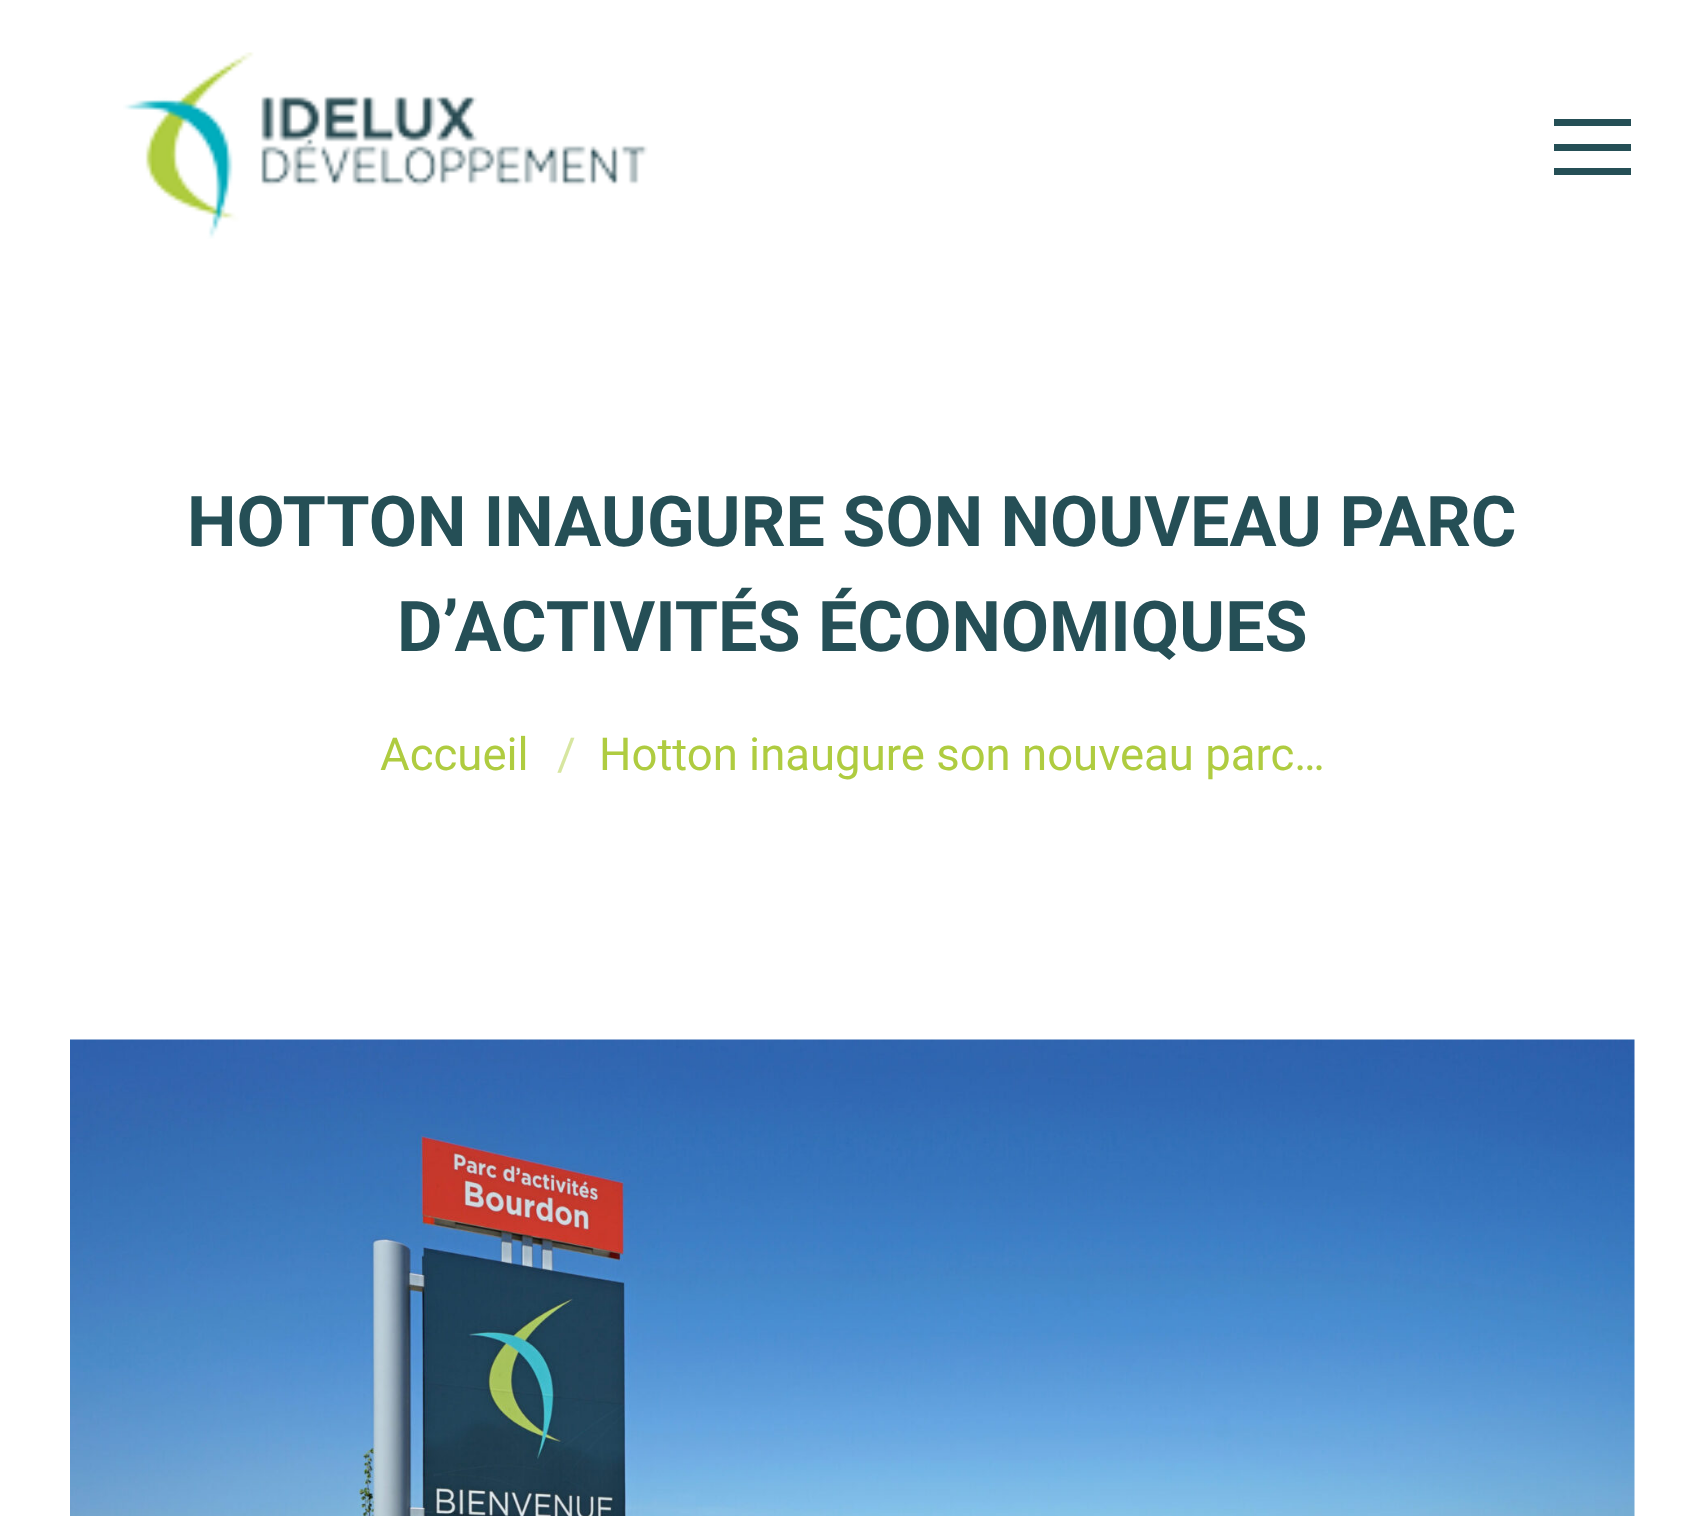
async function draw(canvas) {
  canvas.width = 1702;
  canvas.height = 1516;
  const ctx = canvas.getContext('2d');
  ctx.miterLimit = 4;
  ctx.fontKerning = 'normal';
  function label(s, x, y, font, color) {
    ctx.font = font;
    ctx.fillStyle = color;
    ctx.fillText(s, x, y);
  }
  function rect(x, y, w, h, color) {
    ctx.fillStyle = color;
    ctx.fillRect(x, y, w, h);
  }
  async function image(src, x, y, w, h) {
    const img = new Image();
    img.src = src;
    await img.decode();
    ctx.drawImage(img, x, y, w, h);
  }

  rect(0, 0, 1702, 1516, '#fff');
  await image('assets/img1.png', 123, 52, 525, 187);
  rect(1554, 119, 77, 7, '#254f56');
  rect(1554, 144, 77, 7, '#254f56');
  rect(1554, 168, 77, 7, '#254f56');
  label('HOTTON INAUGURE SON NOUVEAU PARC', 187, 546, 'bold 70px Roboto', '#254f56');
  label('D’ACTIVITÉS ÉCONOMIQUES', 397, 651, 'bold 70px Roboto', '#254f56');
  label('Accueil', 380, 770, '45.5px Roboto', '#afcc40');
  label('/', 557, 770, '45.5px Roboto', '#d7e6a0');
  label('Hotton inaugure son nouveau parc…', 599, 770, '45.5px Roboto', '#afcc40');
  await image('assets/img2.png', 70, 1039, 1565, 477);
}

draw(document.querySelector('canvas'));
